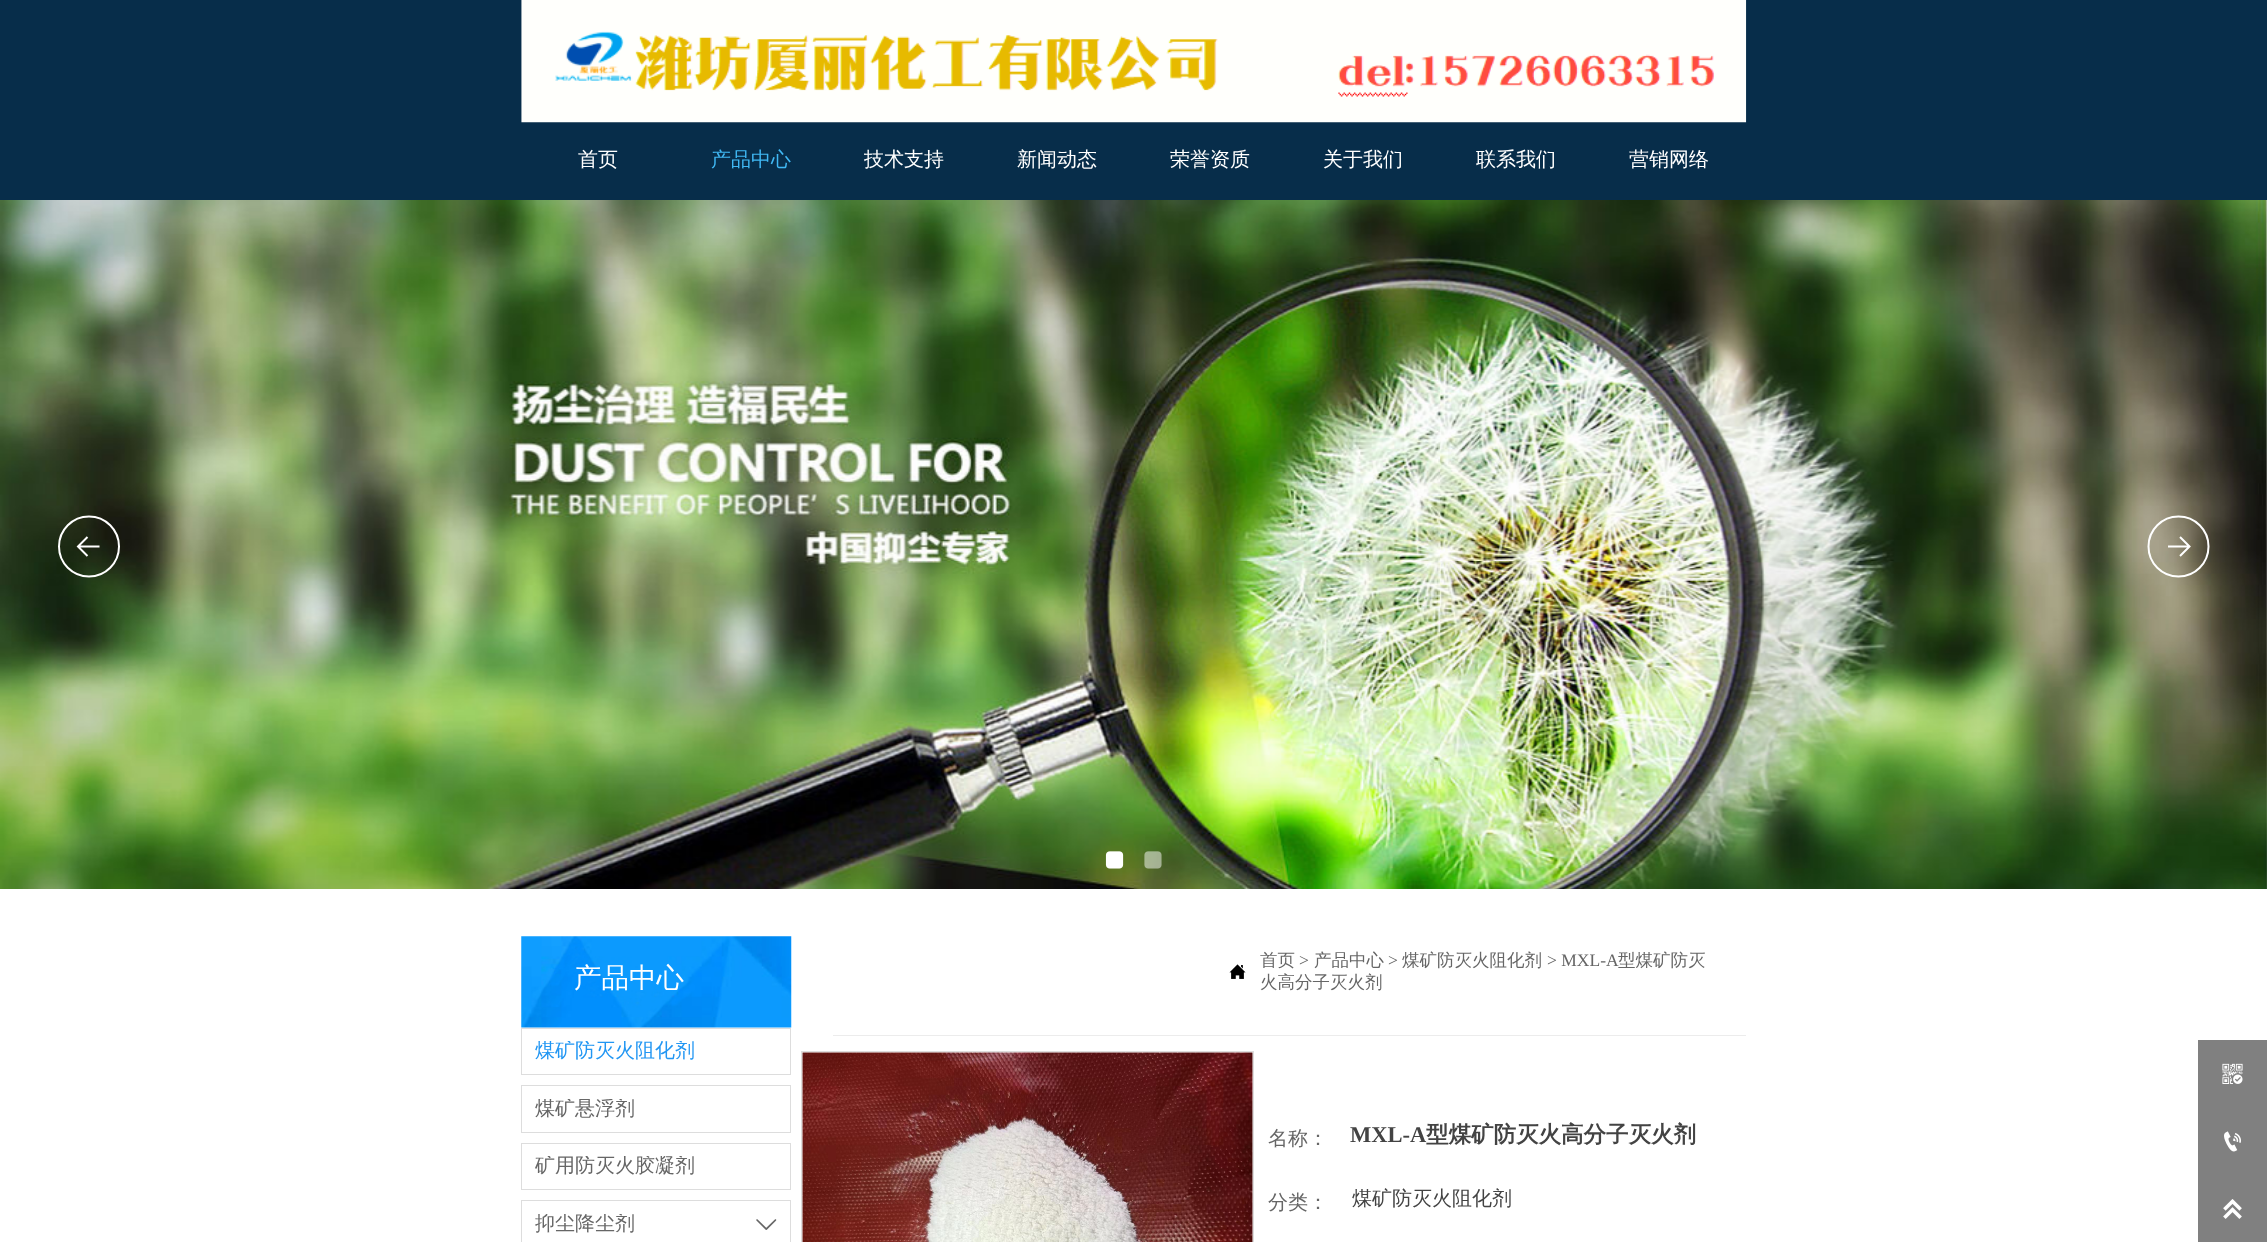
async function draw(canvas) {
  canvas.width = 2267;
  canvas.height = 1242;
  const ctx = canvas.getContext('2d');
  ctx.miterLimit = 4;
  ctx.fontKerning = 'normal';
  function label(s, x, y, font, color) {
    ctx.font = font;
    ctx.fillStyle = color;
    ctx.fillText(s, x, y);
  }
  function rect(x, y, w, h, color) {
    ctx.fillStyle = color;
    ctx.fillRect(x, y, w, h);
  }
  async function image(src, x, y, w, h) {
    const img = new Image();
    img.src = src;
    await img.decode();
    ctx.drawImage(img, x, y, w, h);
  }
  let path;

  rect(0, 0, 2267, 1242, '#fff');
  rect(0, 0, 2267, 200, '#072d4a');
  await image('assets/img1.png', 521, 0, 1226, 123);
  label('首页', 578, 166, '500 20px WenQuanYi Zen Hei', '#fff');
  label('产品中心', 711, 166, '500 20px WenQuanYi Zen Hei', '#40b8f4');
  label('技术支持', 864, 166, '500 20px WenQuanYi Zen Hei', '#fff');
  label('新闻动态', 1017, 166, '500 20px WenQuanYi Zen Hei', '#fff');
  label('荣誉资质', 1170, 166, '500 20px WenQuanYi Zen Hei', '#fff');
  label('关于我们', 1323, 166, '500 20px WenQuanYi Zen Hei', '#fff');
  label('联系我们', 1476, 166, '500 20px WenQuanYi Zen Hei', '#fff');
  label('营销网络', 1629, 166, '500 20px WenQuanYi Zen Hei', '#fff');
  await image('assets/img2.png', 0, 200, 2267, 689);
  ctx.beginPath();
  ctx.arc(89, 546.5, 30, 0, 2 * Math.PI);
  ctx.strokeStyle = '#fff';
  ctx.lineWidth = 2;
  ctx.stroke();
  path = new Path2D('M87.5 537L78 546.5L87.5 556M99.5 546.5H78');
  ctx.stroke(path);
  ctx.beginPath();
  ctx.arc(2178.5, 546.5, 30, 0, 2 * Math.PI);
  ctx.stroke();
  path = new Path2D('M2180 537L2189.5 546.5L2180 556M2168 546.5H2189.5');
  ctx.stroke(path);
  await image('assets/img3.png', 1105, 851, 19, 18);
  await image('assets/img4.png', 1144, 851, 18, 18);
  await image('assets/img5.png', 521, 936, 271, 92);
  label('产品中心', 574, 987, '500 27.5px WenQuanYi Zen Hei', '#fff');
  ctx.strokeStyle = '#ddd';
  ctx.lineWidth = 1;
  ctx.strokeRect(521.5, 1028.5, 269, 46);
  ctx.save();
  ctx.beginPath();
  ctx.rect(523, 1041, 267, 20);
  ctx.clip();
  label('煤矿防灭火阻化剂', 535, 1057, '500 20px WenQuanYi Zen Hei', '#2196f3');
  ctx.restore();
  ctx.strokeRect(521.5, 1085.5, 269, 47);
  ctx.save();
  ctx.beginPath();
  ctx.rect(523, 1099, 267, 20);
  ctx.clip();
  label('煤矿悬浮剂', 535, 1115, '500 20px WenQuanYi Zen Hei', '#666');
  ctx.restore();
  ctx.strokeRect(521.5, 1143.5, 269, 46);
  ctx.save();
  ctx.beginPath();
  ctx.rect(523, 1156, 267, 20);
  ctx.clip();
  label('矿用防灭火胶凝剂', 535, 1172, '500 20px WenQuanYi Zen Hei', '#666');
  ctx.restore();
  ctx.strokeRect(521.5, 1200.5, 269, 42);
  ctx.save();
  ctx.beginPath();
  ctx.rect(523, 1214, 230, 20);
  ctx.clip();
  label('抑尘降尘剂', 535, 1230, '500 20px WenQuanYi Zen Hei', '#666');
  ctx.restore();
  await image('assets/img6.png', 756, 1219, 21, 11);
  await image('assets/img7.png', 1229, 964, 17, 15);
  label('首页', 1260, 966, '500 17.5px WenQuanYi Zen Hei', '#666');
  label('>', 1299, 966, '17.5px Liberation Serif', '#666');
  label('产品中心', 1314, 966, '500 17.5px WenQuanYi Zen Hei', '#666');
  label('>', 1388, 966, '17.5px Liberation Serif', '#666');
  label('煤矿防灭火阻化剂', 1402, 966, '500 17.5px WenQuanYi Zen Hei', '#666');
  label('> MXL-A', 1547, 966, '17.5px Liberation Serif', '#666');
  label('型煤矿防灭', 1618, 966, '500 17.5px WenQuanYi Zen Hei', '#666');
  label('火高分子灭火剂', 1260, 988, '500 17.5px WenQuanYi Zen Hei', '#666');
  rect(833, 1035, 913, 1, '#ececec');
  ctx.strokeRect(801.5, 1051.5, 452, 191);
  await image('assets/img8.png', 802, 1052, 451, 190);
  label('名称：', 1268, 1145, '500 20px WenQuanYi Zen Hei', '#666');
  label('MXL-A', 1350, 1142, 'bold 22.5px Liberation Serif', '#434343');
  label('型煤矿防灭火高分子灭火剂', 1426, 1142, 'bold 22.5px WenQuanYi Zen Hei', '#434343');
  label('分类：', 1268, 1209, '500 20px WenQuanYi Zen Hei', '#666');
  label('煤矿防灭火阻化剂', 1352, 1205, '500 20px WenQuanYi Zen Hei', '#434343');
  rect(2198, 1040, 69, 202, '#808080');
  await image('assets/img9.png', 2222, 1063, 21, 21);
  await image('assets/img10.png', 2224, 1131, 17, 21);
  await image('assets/img11.png', 2223, 1199, 19, 20);
}

draw(document.querySelector('canvas'));
